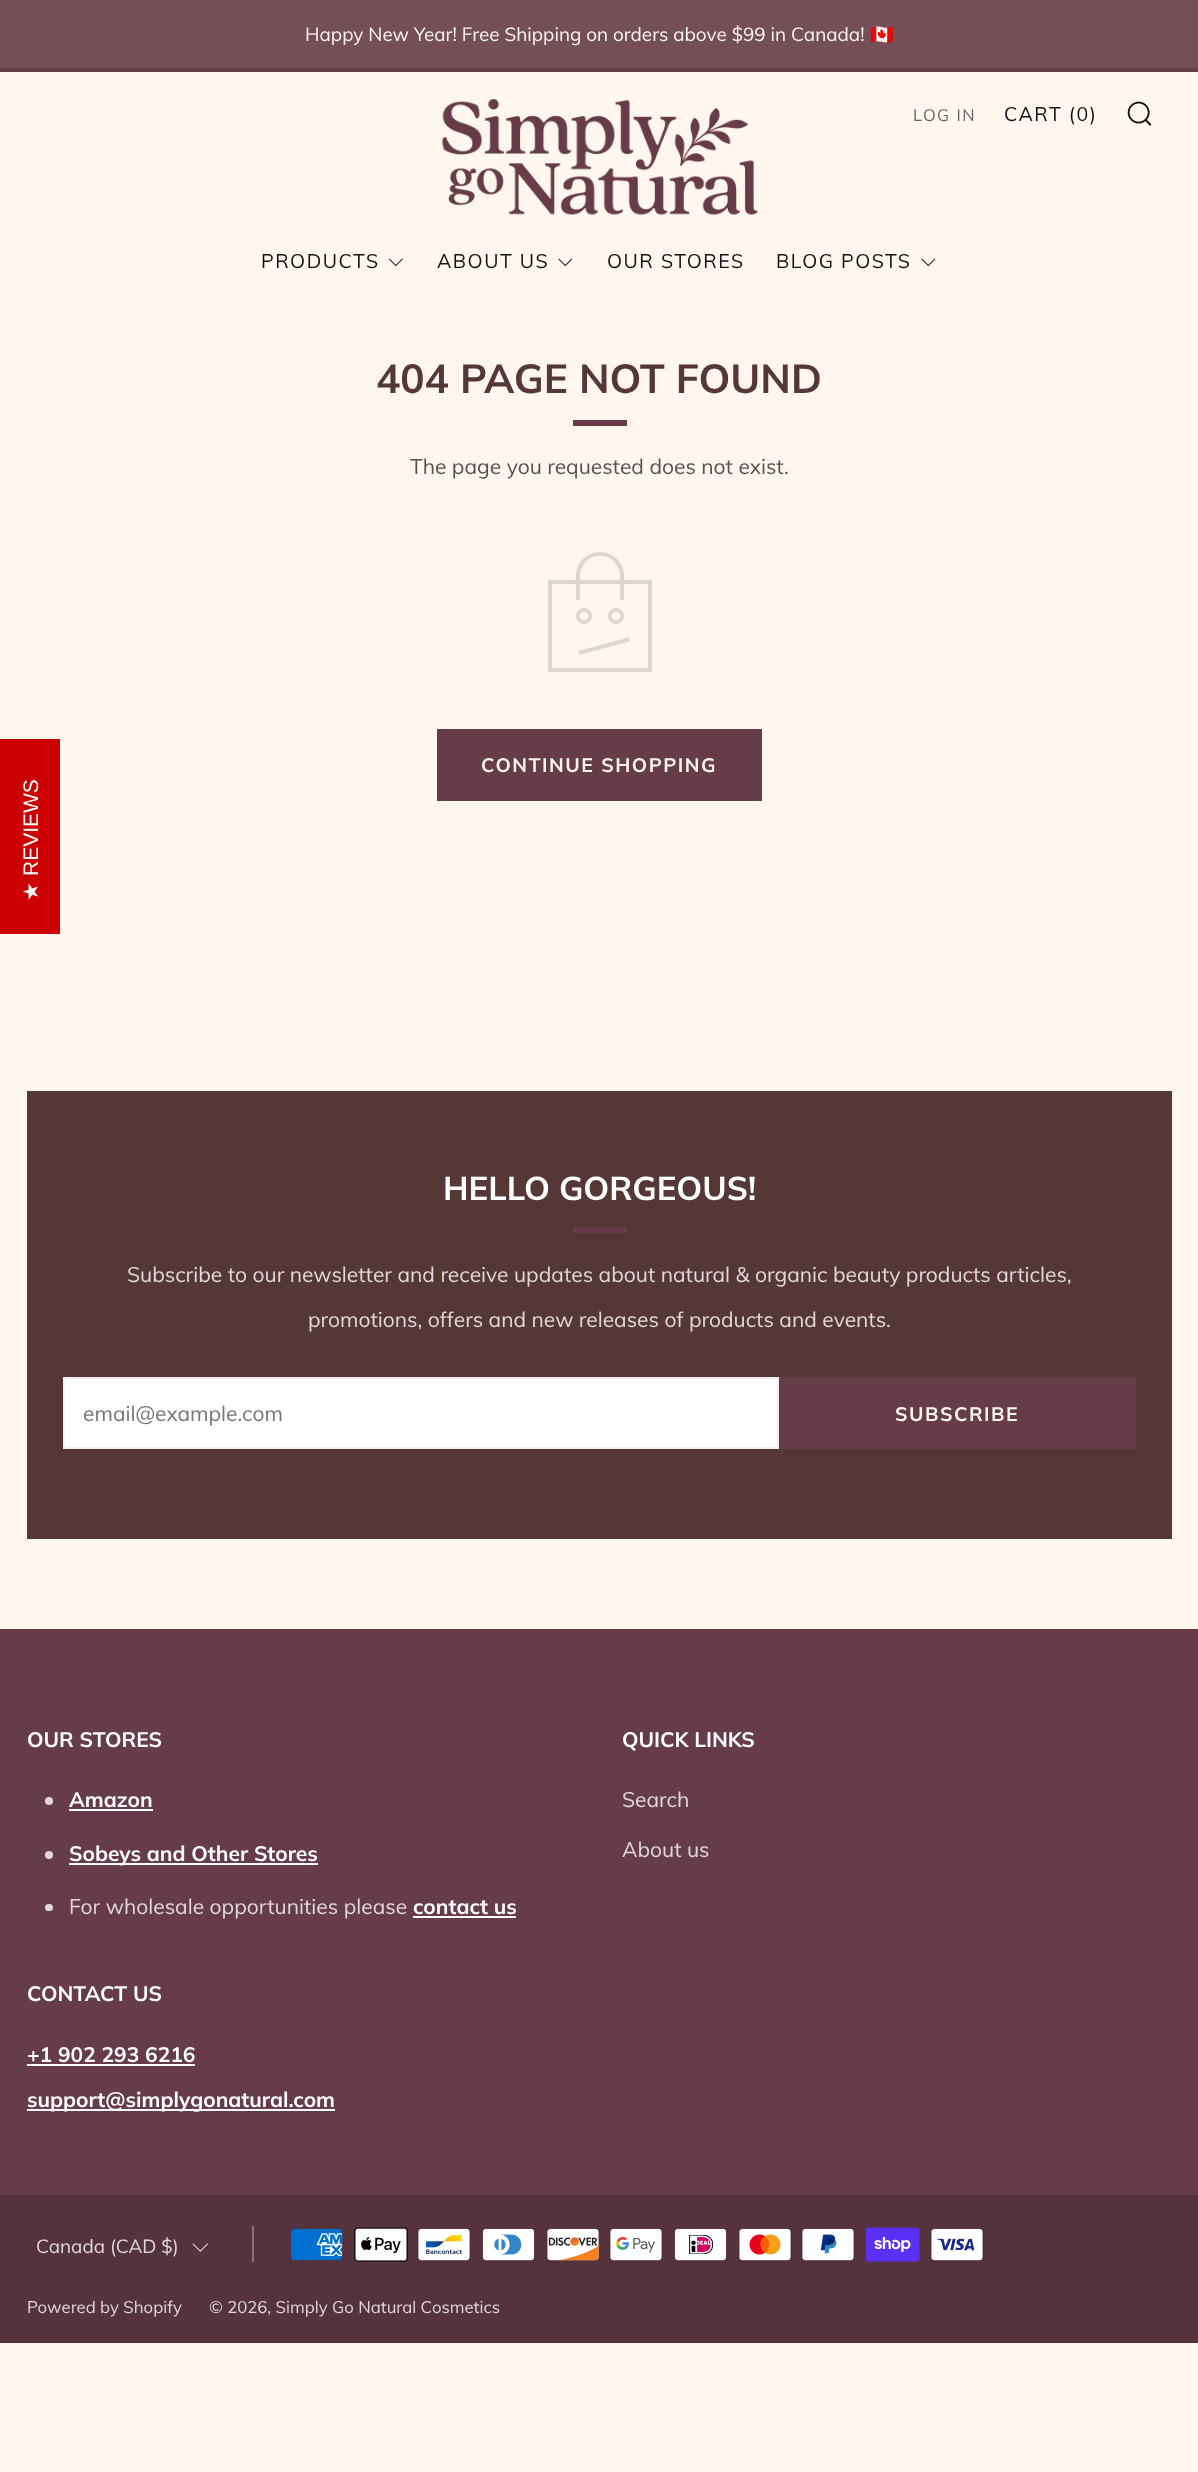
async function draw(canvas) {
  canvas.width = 1198;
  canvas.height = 2472;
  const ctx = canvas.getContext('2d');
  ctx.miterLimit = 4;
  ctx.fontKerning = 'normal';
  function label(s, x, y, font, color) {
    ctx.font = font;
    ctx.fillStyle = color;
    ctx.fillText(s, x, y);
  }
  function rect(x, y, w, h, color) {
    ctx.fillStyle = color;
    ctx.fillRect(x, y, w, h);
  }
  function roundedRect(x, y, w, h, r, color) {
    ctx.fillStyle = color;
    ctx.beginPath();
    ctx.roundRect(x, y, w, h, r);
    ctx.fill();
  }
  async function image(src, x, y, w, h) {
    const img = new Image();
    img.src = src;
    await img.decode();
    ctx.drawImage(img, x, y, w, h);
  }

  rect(0, 0, 1198, 2472, '#fff6ed');
  rect(0, 0, 1198, 68, '#744f58');
  label('Happy New Year! Free Shipping on orders above $99 in Canada!', 305, 41, '18.9px Muli', '#fff6ed');
  label('🇨🇦', 870, 41, '18.9px Noto Color Emoji', '#fff6ed');
  rect(0, 68, 1198, 4, '#653c47');
  await image('assets/img1.png', 442, 99, 316, 116);
  ctx.letterSpacing = '1.5px';
  label('LOG IN', 913, 121, '16.5px Muli', '#666');
  label('CART (0)', 1004, 121, '19.5px Muli', '#111');
  await image('assets/img2.png', 1127, 101, 25, 25);
  label('PRODUCTS', 261, 268, '19.5px Muli', '#111');
  await image('assets/img3.png', 388, 258, 15, 9);
  label('ABOUT US', 437, 268, '19.5px Muli', '#111');
  await image('assets/img4.png', 558, 258, 15, 9);
  label('OUR STORES', 607, 268, '19.5px Muli', '#111');
  label('BLOG POSTS', 776, 268, '19.5px Muli', '#111');
  await image('assets/img4.png', 921, 258, 15, 9);
  ctx.letterSpacing = '0px';
  label('404 PAGE NOT FOUND', 376, 393, 'bold 40.5px Muli', '#553735');
  rect(573, 420, 54, 6, '#653c47');
  label('The page you requested does not exist.', 410, 474, '21px Muli', '#535353');
  await image('assets/img5.png', 548, 552, 104, 120);
  rect(437, 729, 325, 72, '#653c47');
  ctx.letterSpacing = '1.5px';
  label('CONTINUE SHOPPING', 481, 772, 'bold 19.5px Muli', '#fff6ed');
  rect(27, 1091, 1145, 448, '#553735');
  ctx.letterSpacing = '0px';
  label('HELLO GORGEOUS!', 443, 1200, 'bold 33px Muli', '#fff');
  rect(573, 1227, 54, 6, '#653c47');
  label('Subscribe to our newsletter and receive updates about natural & organic beauty products articles,', 127, 1282, '21px Muli', '#e0d8da');
  label('promotions, offers and new releases of products and events.', 308, 1327, '21px Muli', '#e0d8da');
  ctx.fillStyle = '#fff';
  ctx.beginPath();
  ctx.rect(64, 1378, 714, 70);
  ctx.fill();
  ctx.strokeStyle = '#f0f0f0';
  ctx.lineWidth = 2;
  ctx.stroke();
  label('email@example.com', 83, 1421, '21px Muli', '#757575');
  rect(779, 1377, 357, 72, '#653c47');
  ctx.letterSpacing = '1.5px';
  label('SUBSCRIBE', 895, 1421, 'bold 19.5px Muli', '#fff6ed');
  rect(0, 1629, 1198, 566, '#653c47');
  ctx.letterSpacing = '0px';
  label('OUR STORES', 27, 1747, 'bold 21px Muli', '#fff');
  ctx.fillStyle = '#e0d8da';
  ctx.beginPath();
  ctx.arc(49, 1801, 4, 0, 2 * Math.PI);
  ctx.fill();
  label('Amazon', 69, 1807, 'bold 21px Muli', '#fff');
  rect(69, 1809, 84, 2, '#fff');
  ctx.fillStyle = '#e0d8da';
  ctx.beginPath();
  ctx.arc(49, 1855, 4, 0, 2 * Math.PI);
  ctx.fill();
  rect(69, 1863, 249, 2, '#fff');
  label('Sobeys and Other Stores', 69, 1861, 'bold 21px Muli', '#fff');
  roundedRect(45, 1904, 8, 7, 3.5, '#e0d8da');
  label('For wholesale opportunities please', 69, 1914, '21px Muli', '#e0d8da');
  label('contact us', 413, 1914, 'bold 21px Muli', '#fff');
  rect(413, 1916, 103, 2, '#fff');
  label('QUICK LINKS', 622, 1747, 'bold 21px Muli', '#fff');
  label('Search', 622, 1807, '21px Muli', '#e0d8da');
  label('About us', 622, 1857, '21px Muli', '#e0d8da');
  label('CONTACT US', 27, 2001, 'bold 21px Muli', '#fff');
  label('+1 902 293 6216', 27, 2062, 'bold 21px Muli', '#fff');
  rect(27, 2064, 168, 2, '#fff');
  rect(27, 2109, 308, 2, '#fff');
  label('support@simplygonatural.com', 27, 2107, 'bold 21px Muli', '#fff');
  rect(0, 2195, 1198, 148, '#55323c');
  label('Canada (CAD $)', 36, 2253, '18.9px Muli', '#e0d8da');
  await image('assets/img6.png', 192, 2243, 16, 9);
  rect(252, 2226, 2, 36, '#887077');
  await image('assets/img7.png', 290, 2228, 53, 33);
  await image('assets/img8.png', 354, 2227, 54, 35);
  await image('assets/img9.png', 417, 2228, 54, 33);
  await image('assets/img10.png', 482, 2228, 53, 33);
  await image('assets/img11.png', 546, 2228, 54, 33);
  await image('assets/img12.png', 609, 2228, 54, 33);
  await image('assets/img13.png', 674, 2228, 53, 33);
  await image('assets/img14.png', 738, 2228, 54, 33);
  await image('assets/img15.png', 801, 2228, 54, 33);
  await image('assets/img16.png', 866, 2227, 54, 35);
  await image('assets/img17.png', 930, 2228, 54, 33);
  label('Powered by Shopify', 27, 2313, '16.75px Muli', '#e0d8da');
  label('© 2026, Simply Go Natural Cosmetics', 209, 2313, '16.75px Muli', '#e0d8da');
  rect(0, 739, 60, 195, '#c00');
  ctx.font = '21px Liberation Sans';
  ctx.fillStyle = '#fff';
  ctx.save();
  ctx.translate(38, 876);
  ctx.rotate(-90 * Math.PI / 180);
  ctx.fillText('REVIEWS', 0, 0);
  ctx.restore();
  ctx.font = '21px DejaVu Sans';
  ctx.save();
  ctx.translate(38, 901);
  ctx.rotate(-90 * Math.PI / 180);
  ctx.fillText('★', 0, 0);
  ctx.restore();
}

draw(document.querySelector('canvas'));
